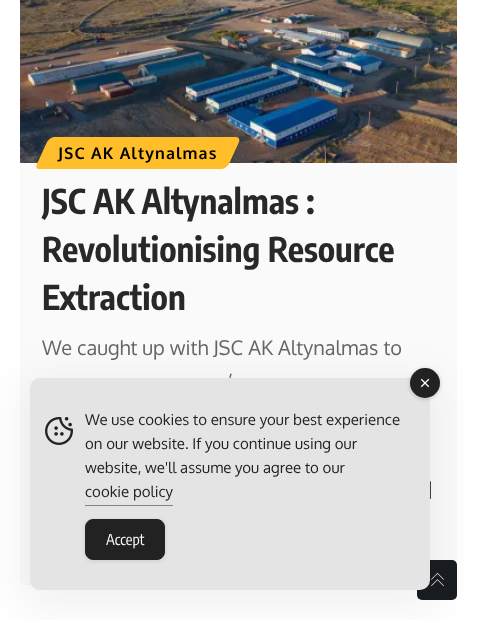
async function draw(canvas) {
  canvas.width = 477;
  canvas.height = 620;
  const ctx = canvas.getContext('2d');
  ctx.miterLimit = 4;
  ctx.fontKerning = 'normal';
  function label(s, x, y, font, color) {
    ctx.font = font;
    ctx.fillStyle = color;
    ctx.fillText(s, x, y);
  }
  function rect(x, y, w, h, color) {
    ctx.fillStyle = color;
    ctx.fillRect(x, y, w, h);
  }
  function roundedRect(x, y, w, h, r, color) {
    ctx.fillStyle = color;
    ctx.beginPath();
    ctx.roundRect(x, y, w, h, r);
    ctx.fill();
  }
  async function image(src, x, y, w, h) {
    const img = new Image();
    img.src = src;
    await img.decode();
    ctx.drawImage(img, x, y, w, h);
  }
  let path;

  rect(0, 0, 477, 620, '#fff');
  roundedRect(20, -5, 437, 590, 5, '#fafafa');
  await image('assets/img1.png', 20, 0, 437, 163);
  ctx.fillStyle = '#ffbe2a';
  path = new Path2D('M54 137H236C239 137 240 140 239 142L229 164C227 167 224 169 221 169H39C37 169 35 167 37 164L47 142C48 140 52 137 54 137Z');
  ctx.fill(path);
  ctx.letterSpacing = '1.1px';
  label('JSC AK Altynalmas', 58, 159, 'bold 16px Oxygen', '#000');
  ctx.letterSpacing = '0px';
  label('JSC AK Altynalmas :', 42, 214, 'bold 34px Encode Sans Condensed', '#282828');
  label('Revolutionising Resource', 42, 262, 'bold 34px Encode Sans Condensed', '#282828');
  label('Extraction', 42, 310, 'bold 34px Encode Sans Condensed', '#282828');
  label('We caught up with JSC AK Altynalmas to', 42, 355, '20px Oxygen', '#666');
  label('’', 228, 389, '20px Oxygen', '#666');
  await image('assets/img2.png', 430, 481, 1, 18);
  roundedRect(417, 560, 40, 40, 5, '#191c20');
  await image('assets/img5.png', 431, 573, 13, 13);
  ctx.fillStyle = '#0000000d';
  ctx.filter = 'blur(20px)';
  ctx.beginPath();
  ctx.roundRect(20, 378, 420, 232, 20);
  ctx.fill();
  ctx.filter = 'none';
  roundedRect(30, 378, 400, 212, 10, '#e4e4e4');
  ctx.fillStyle = '#00000033';
  ctx.filter = 'blur(2px)';
  ctx.beginPath();
  ctx.roundRect(410, 369, 30, 30, 15);
  ctx.fill();
  ctx.filter = 'none';
  ctx.fillStyle = '#222';
  ctx.beginPath();
  ctx.arc(425, 383, 15, 0, 2 * Math.PI);
  ctx.fill();
  await image('assets/img3.png', 420, 378, 10, 10);
  await image('assets/img4.png', 45, 417, 28, 28);
  label('We use cookies to ensure your best experience', 85, 425, '15px Oxygen', '#222');
  label('on our website. If you continue using our', 85, 449, '15px Oxygen', '#222');
  label('website, we\'ll assume you agree to our', 85, 473, '15px Oxygen', '#222');
  label('cookie policy', 85, 497, '15px Oxygen', '#222');
  rect(85, 505, 88, 1, '#838383');
  ctx.fillStyle = '#0000001a';
  ctx.filter = 'blur(2px)';
  ctx.beginPath();
  ctx.roundRect(85, 520, 80, 41, 8);
  ctx.fill();
  ctx.filter = 'none';
  ctx.fillStyle = '#222';
  ctx.beginPath();
  ctx.roundRect(85.5, 519.5, 79, 40, 7.5);
  ctx.fill();
  ctx.strokeStyle = '#222';
  ctx.stroke();
  label('Accept', 106, 545, '15px Encode Sans Condensed', '#fff');
}

draw(document.querySelector('canvas'));
